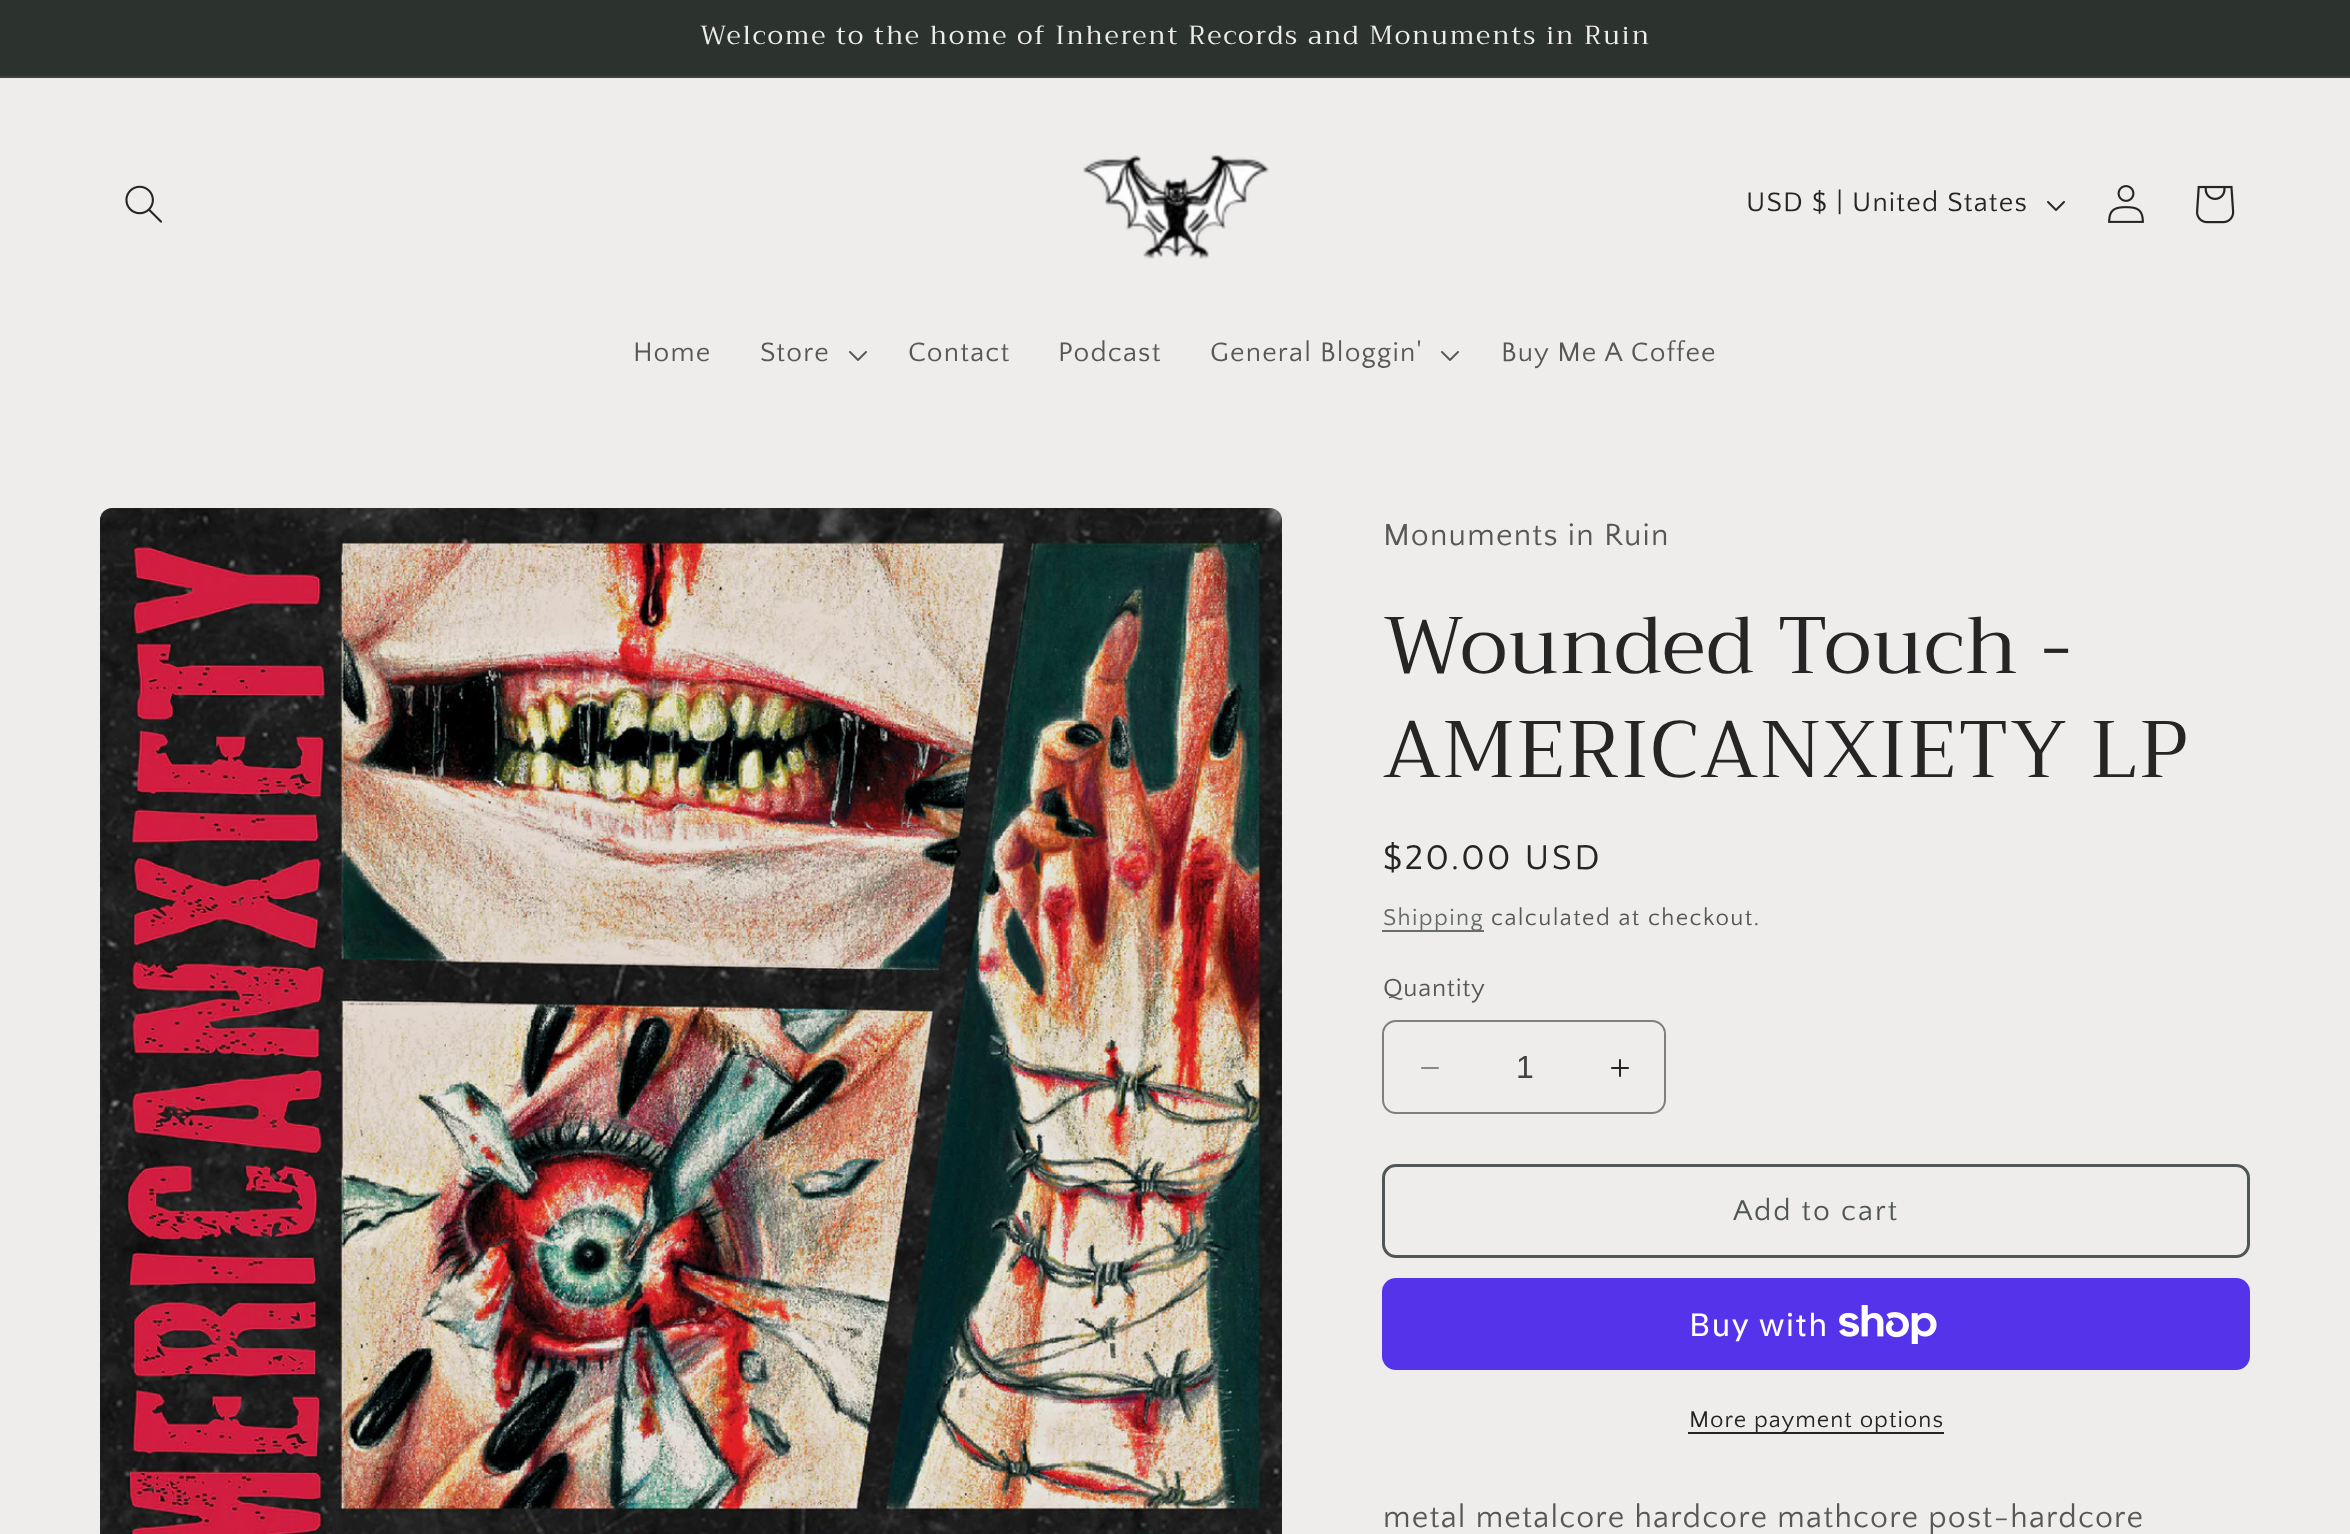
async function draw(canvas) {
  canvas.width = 2350;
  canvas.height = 1534;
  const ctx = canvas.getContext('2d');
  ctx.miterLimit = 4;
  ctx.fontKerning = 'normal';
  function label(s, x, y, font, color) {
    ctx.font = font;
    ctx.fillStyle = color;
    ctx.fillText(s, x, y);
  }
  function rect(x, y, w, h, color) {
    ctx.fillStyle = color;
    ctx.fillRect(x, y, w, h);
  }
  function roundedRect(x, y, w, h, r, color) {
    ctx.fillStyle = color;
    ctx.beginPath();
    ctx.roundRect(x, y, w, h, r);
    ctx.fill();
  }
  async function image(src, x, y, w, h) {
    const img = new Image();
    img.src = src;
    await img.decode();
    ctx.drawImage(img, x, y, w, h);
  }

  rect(0, 0, 2350, 1534, '#efecec');
  rect(0, 0, 2350, 76, '#2c332f');
  rect(0, 76, 2350, 2, '#3c423e');
  ctx.letterSpacing = '2px';
  label('Welcome to the home of Inherent Records and Monuments in Ruin', 700, 44, '26px Trirong', '#efecec');
  await image('assets/img1.png', 125, 185, 37, 38);
  await image('assets/img2.png', 1083, 155, 186, 104);
  ctx.letterSpacing = '1.2px';
  label('USD $ | United States', 1746, 211, '28px Quattrocento Sans', '#252525');
  await image('assets/img3.png', 2047, 201, 18, 10);
  await image('assets/img4.png', 2108, 185, 36, 38);
  await image('assets/img5.png', 2196, 185, 39, 39);
  label('Home', 633, 361, '28px Quattrocento Sans', '#585757');
  label('Store', 760, 361, '28px Quattrocento Sans', '#585757');
  await image('assets/img6.png', 849, 351, 18, 10);
  label('Contact', 908, 361, '28px Quattrocento Sans', '#585757');
  label('Podcast', 1058, 361, '28px Quattrocento Sans', '#585757');
  label('General Bloggin\'', 1210, 361, '28px Quattrocento Sans', '#585757');
  await image('assets/img6.png', 1441, 351, 18, 10);
  label('Buy Me A Coffee', 1501, 361, '28px Quattrocento Sans', '#585757');
  await image('assets/img7.png', 100, 508, 1182, 1026);
  label('Monuments in Ruin', 1383, 545, '32px Quattrocento Sans', '#585757');
  label('Wounded Touch -', 1383, 673, '80px Trirong', '#252525');
  label('AMERICANXIETY LP', 1383, 777, '80px Trirong', '#252525');
  ctx.letterSpacing = '2.6px';
  label('$20.00 USD', 1383, 869, '36px Quattrocento Sans', '#252525');
  rect(1382, 930, 102, 2, '#686d6c');
  ctx.letterSpacing = '1.4px';
  label('Shipping', 1383, 925, '24px Quattrocento Sans', '#676c6b');
  label('calculated at checkout.', 1491, 925, '24px Quattrocento Sans', '#585757');
  ctx.letterSpacing = '0.75px';
  label('Quantity', 1383, 996, '26px Quattrocento Sans', '#585757');
  await image('assets/img8.png', 1421, 1067, 18, 2);
  await image('assets/img9.png', 1611, 1059, 18, 18);
  ctx.beginPath();
  ctx.roundRect(1383, 1021, 282, 92, 13);
  ctx.strokeStyle = '#807f7f';
  ctx.lineWidth = 2;
  ctx.stroke();
  ctx.letterSpacing = '0px';
  label('1', 1516, 1078, '32px Liberation Sans', '#434343');
  ctx.beginPath();
  ctx.roundRect(1383.5, 1165.5, 865, 91, 12.5);
  ctx.strokeStyle = '#505655';
  ctx.lineWidth = 3;
  ctx.stroke();
  ctx.letterSpacing = '2px';
  label('Add to cart', 1733, 1220, '30px Quattrocento Sans', '#505655');
  roundedRect(1382, 1278, 868, 92, 14, '#5433eb');
  ctx.letterSpacing = '1.2px';
  label('Buy with', 1689, 1336, '32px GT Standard', '#fff');
  await image('assets/img10.png', 1839, 1305, 98, 39);
  rect(1688, 1432, 256, 2, '#252525');
  ctx.letterSpacing = '1px';
  label('More payment options', 1689, 1427, '24px Quattrocento Sans', '#252525');
  ctx.letterSpacing = '1.2px';
  label('metal metalcore hardcore mathcore post-hardcore', 1383, 1527, '32px Quattrocento Sans', '#585757');
}

draw(document.querySelector('canvas'));
